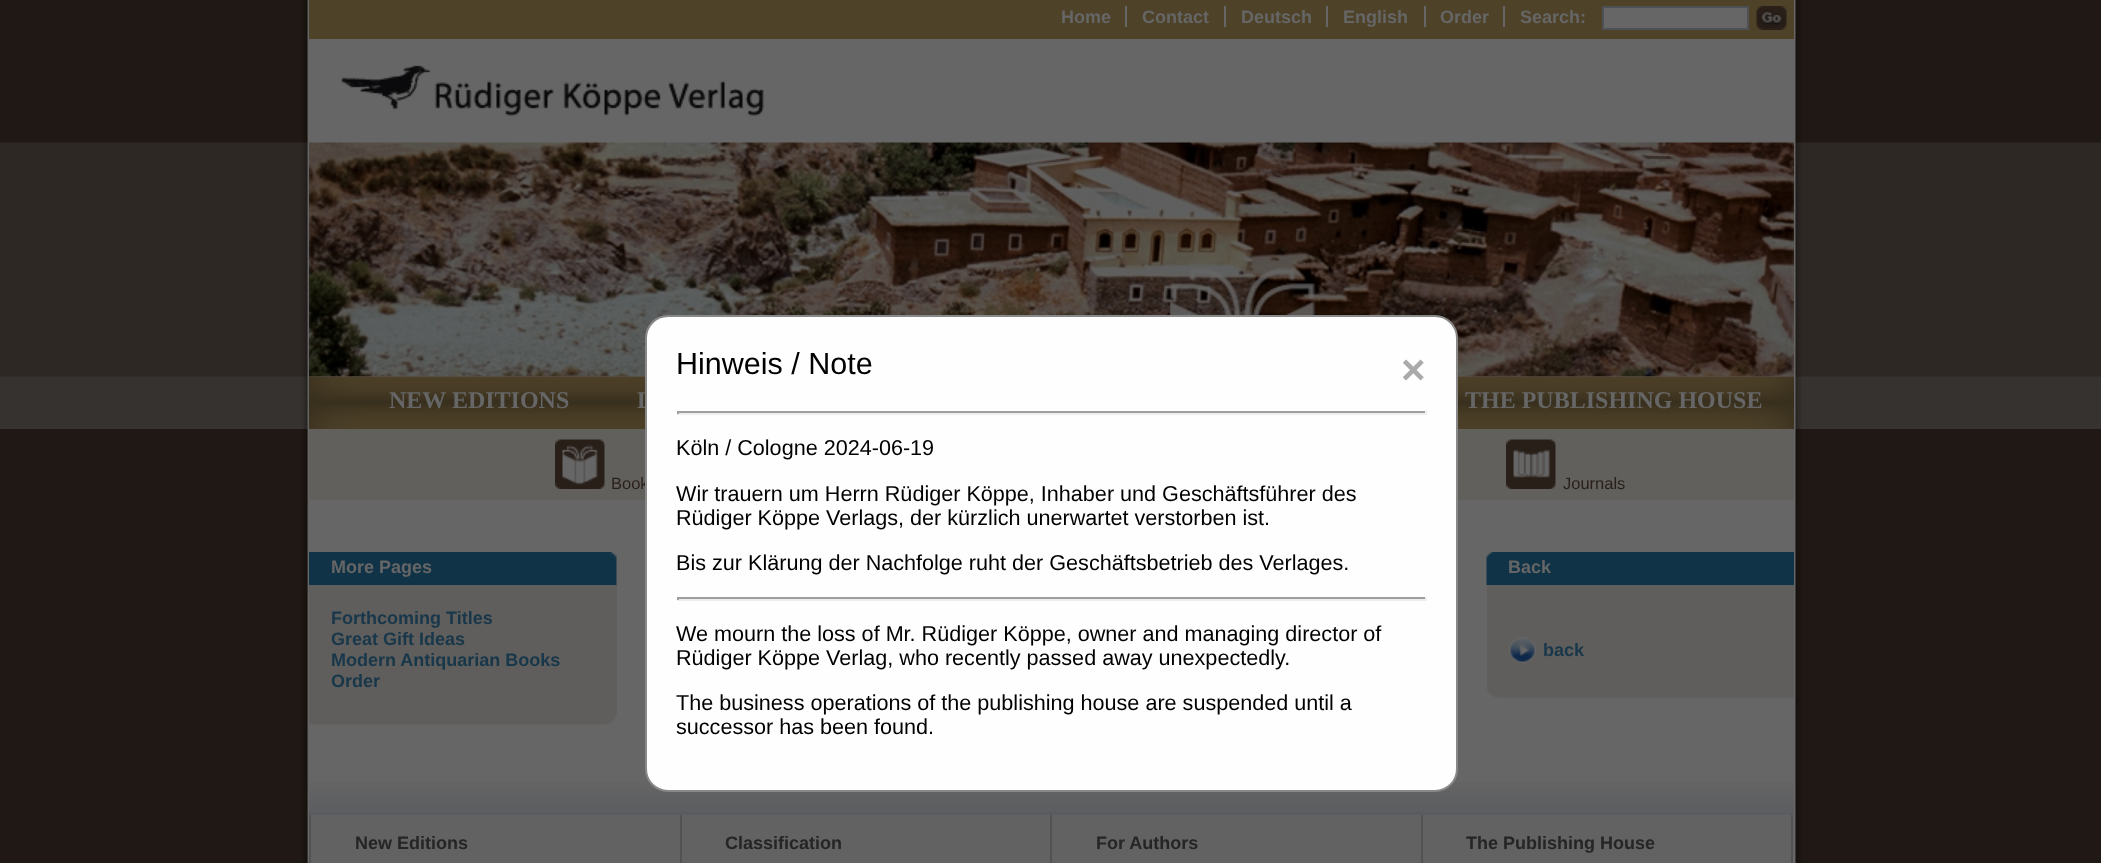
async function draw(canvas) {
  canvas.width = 2101;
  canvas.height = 863;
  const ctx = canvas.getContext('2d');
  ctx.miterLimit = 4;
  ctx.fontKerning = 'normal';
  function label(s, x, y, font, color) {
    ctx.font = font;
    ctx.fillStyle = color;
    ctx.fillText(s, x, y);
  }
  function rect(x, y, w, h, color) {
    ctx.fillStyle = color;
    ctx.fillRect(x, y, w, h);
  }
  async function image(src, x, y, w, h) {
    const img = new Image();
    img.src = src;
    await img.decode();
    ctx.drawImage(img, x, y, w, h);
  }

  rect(0, 0, 2101, 863, '#1f1814');
  await image('assets/img1.png', 0, 142, 2101, 287);
  await image('assets/img2.png', 301, 0, 1501, 863);
  rect(309, 0, 1485, 39, '#4e4229');
  label('Home', 1061, 23, 'bold 18px Liberation Sans', '#666');
  label('Contact', 1142, 23, 'bold 18px Liberation Sans', '#666');
  rect(1125, 6, 2, 21, '#666');
  label('Deutsch', 1241, 23, 'bold 18px Liberation Sans', '#666');
  rect(1224, 6, 2, 21, '#666');
  label('English', 1343, 23, 'bold 18px Liberation Sans', '#666');
  rect(1326, 6, 2, 21, '#666');
  label('Order', 1440, 23, 'bold 18px Liberation Sans', '#666');
  rect(1424, 6, 2, 21, '#666');
  label('Search:', 1520, 23, 'bold 18px Liberation Sans', '#666');
  rect(1503, 6, 2, 21, '#666');
  ctx.beginPath();
  ctx.rect(1603, 7, 145, 22);
  ctx.fill();
  ctx.strokeStyle = '#4d5054';
  ctx.lineWidth = 2;
  ctx.stroke();
  await image('assets/img3.png', 1756, 6, 31, 24);
  await image('assets/img4.png', 340, 65, 424, 51);
  await image('assets/img5.png', 309, 142, 1485, 235);
  await image('assets/img6.png', 309, 376, 1485, 53);
  label('NEW EDITIONS', 389, 408, 'bold 24px Liberation Serif', '#666');
  label('L', 637, 408, 'bold 24px Liberation Serif', '#666');
  label('THE PUBLISHING HOUSE', 1465, 408, 'bold 24px Liberation Serif', '#666');
  rect(309, 429, 1485, 71, '#62605c');
  await image('assets/img7.png', 555, 439, 50, 50);
  label('Book', 611, 489, '16.5px Liberation Sans', '#291f19');
  await image('assets/img8.png', 1506, 439, 50, 50);
  label('Journals', 1563, 489, '16.5px Liberation Sans', '#291f19');
  await image('assets/img9.png', 309, 552, 308, 33);
  label('More Pages', 331, 573, 'bold 18px Liberation Sans', '#666');
  rect(309, 585, 308, 129, '#5f5e5c');
  label('Forthcoming Titles', 331, 624, 'bold 18px Liberation Sans', '#18374a');
  label('Great Gift Ideas', 331, 645, 'bold 18px Liberation Sans', '#18374a');
  label('Modern Antiquarian Books', 331, 666, 'bold 18px Liberation Sans', '#18374a');
  label('Order', 331, 687, 'bold 18px Liberation Sans', '#18374a');
  await image('assets/img10.png', 309, 714, 308, 11);
  await image('assets/img11.png', 1486, 552, 308, 33);
  label('Back', 1508, 573, 'bold 18px Liberation Sans', '#666');
  rect(1487, 585, 307, 102, '#5f5e5c');
  await image('assets/img12.png', 1509, 637, 27, 26);
  label('back', 1543, 656, 'bold 18px Liberation Sans', '#18374a');
  await image('assets/img13.png', 1486, 687, 308, 11);
  await image('assets/img14.png', 309, 782, 1485, 33);
  rect(311, 815, 369, 48, '#626262');
  rect(309, 815, 2, 48, '#525252');
  label('New Editions', 355, 849, 'bold 18px Liberation Sans', '#252526');
  rect(682, 815, 368, 48, '#626262');
  rect(680, 815, 2, 48, '#525252');
  label('Classification', 725, 849, 'bold 18px Liberation Sans', '#252526');
  rect(1052, 815, 369, 48, '#626262');
  rect(1050, 815, 2, 48, '#525252');
  label('For Authors', 1096, 849, 'bold 18px Liberation Sans', '#252526');
  rect(1423, 815, 368, 48, '#626262');
  rect(1791, 815, 2, 48, '#525252');
  rect(1421, 815, 2, 48, '#525252');
  label('The Publishing House', 1466, 849, 'bold 18px Liberation Sans', '#252526');
  ctx.fillStyle = '#fefefe';
  ctx.beginPath();
  ctx.roundRect(646, 316, 811, 475, 22);
  ctx.fill();
  ctx.strokeStyle = '#888';
  ctx.stroke();
  label('Hinweis / Note', 676, 374, '30.5px Liberation Sans', '#000');
  label('×', 1401, 384, 'bold 42px Liberation Sans', '#aaa');
  rect(677, 411, 750, 2, '#9f9f9f');
  rect(1425, 411, 2, 3, '#eee');
  rect(677, 413, 750, 2, '#eee');
  rect(677, 411, 2, 3, '#9f9f9f');
  label('Köln / Cologne 2024-06-19', 676, 455, '21.6px Liberation Sans', '#000');
  label('Wir trauern um Herrn Rüdiger Köppe, Inhaber und Geschäftsführer des', 676, 501, '21.6px Liberation Sans', '#000');
  label('Rüdiger Köppe Verlags, der kürzlich unerwartet verstorben ist.', 676, 525, '21.6px Liberation Sans', '#000');
  label('Bis zur Klärung der Nachfolge ruht der Geschäftsbetrieb des Verlages.', 676, 570, '21.6px Liberation Sans', '#000');
  rect(677, 597, 750, 2, '#9f9f9f');
  rect(1425, 597, 2, 3, '#eee');
  rect(677, 599, 750, 2, '#eee');
  rect(677, 597, 2, 3, '#9f9f9f');
  label('We mourn the loss of Mr. Rüdiger Köppe, owner and managing director of', 676, 641, '21.6px Liberation Sans', '#000');
  label('Rüdiger Köppe Verlag, who recently passed away unexpectedly.', 676, 665, '21.6px Liberation Sans', '#000');
  label('The business operations of the publishing house are suspended until a', 676, 710, '21.6px Liberation Sans', '#000');
  label('successor has been found.', 676, 734, '21.6px Liberation Sans', '#000');
}

draw(document.querySelector('canvas'));
